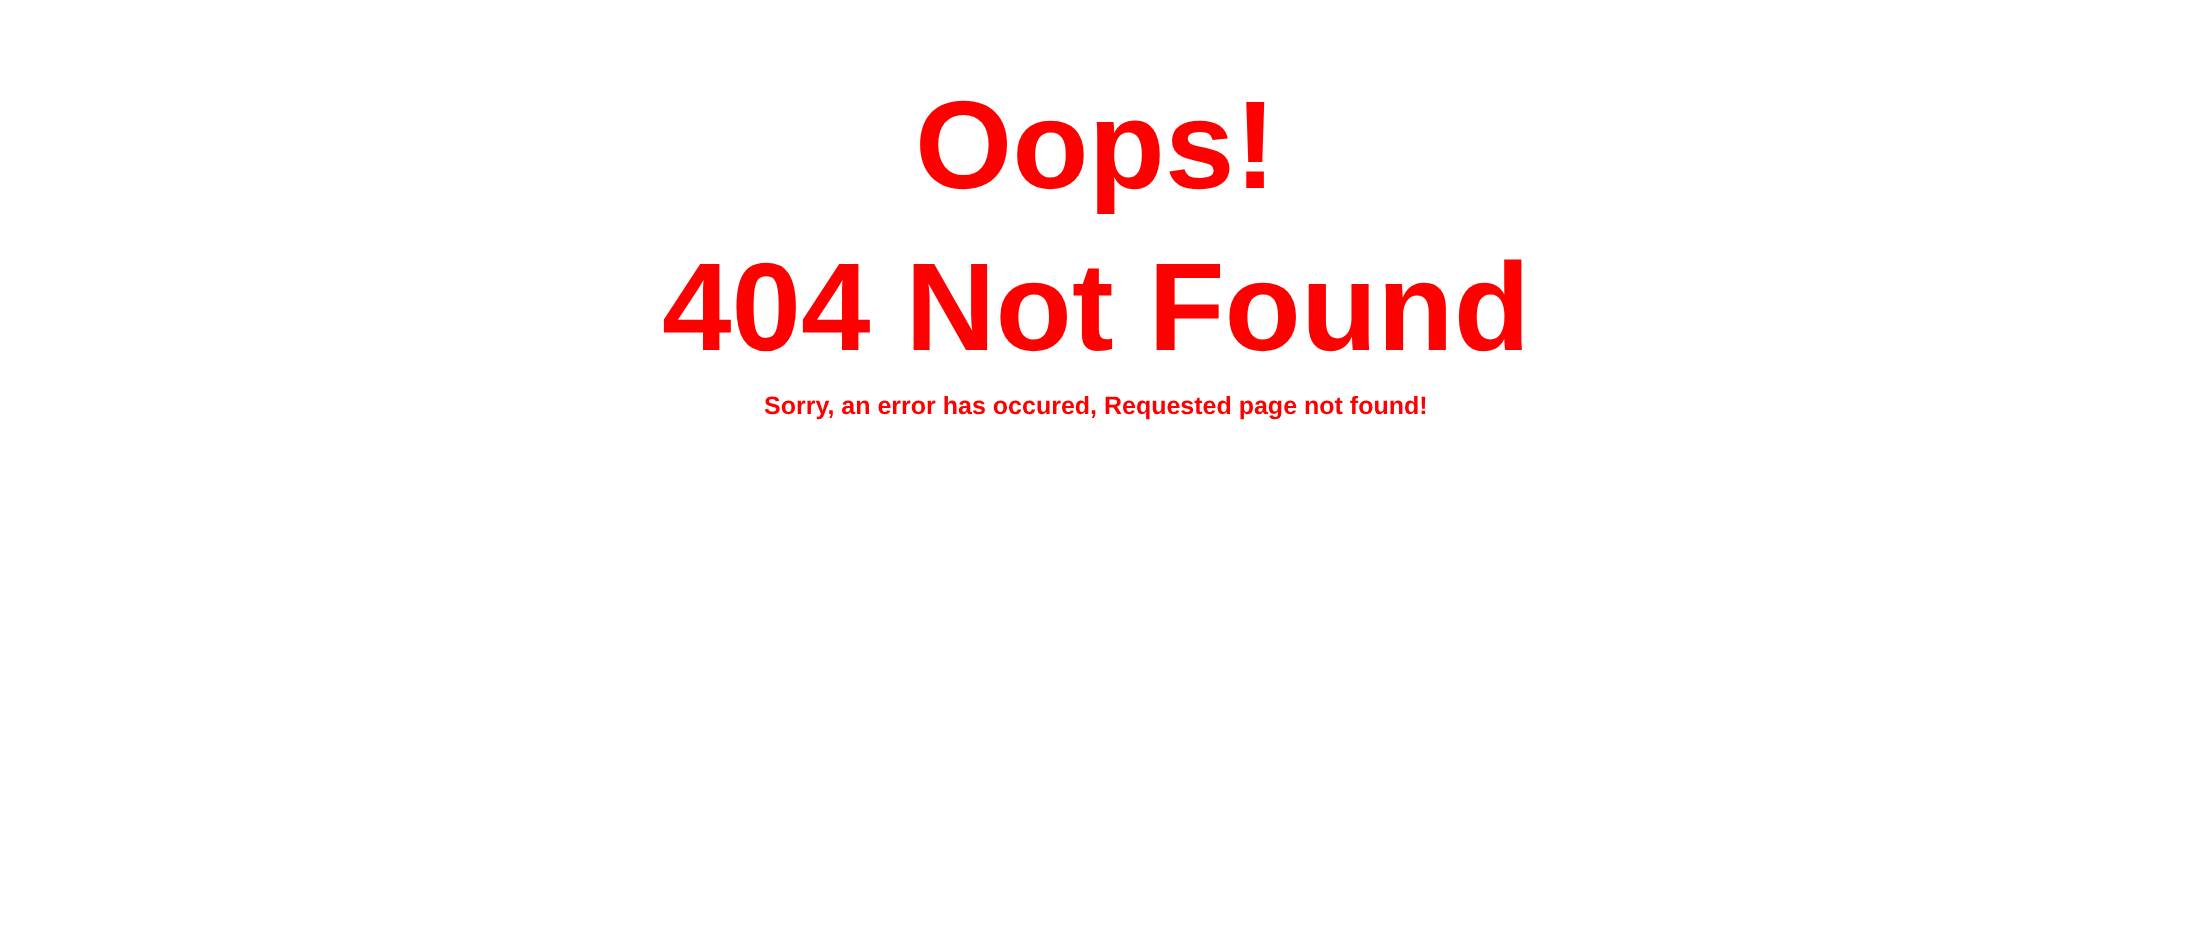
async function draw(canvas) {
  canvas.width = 2191;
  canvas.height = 935;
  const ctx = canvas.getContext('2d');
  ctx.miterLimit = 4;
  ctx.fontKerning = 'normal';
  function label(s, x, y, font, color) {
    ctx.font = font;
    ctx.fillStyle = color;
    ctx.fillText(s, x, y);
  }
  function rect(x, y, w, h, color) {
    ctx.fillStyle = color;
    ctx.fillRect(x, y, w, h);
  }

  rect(0, 0, 2191, 935, '#fff');
  label('Oops!', 915, 188, 'bold 125px Liberation Sans', '#f00');
  label('404 Not Found', 662, 350, 'bold 125px Liberation Sans', '#f00');
  label('Sorry, an error has occured, Requested page not found!', 764, 414, 'bold 25px Liberation Sans', '#f00');
}

draw(document.querySelector('canvas'));
